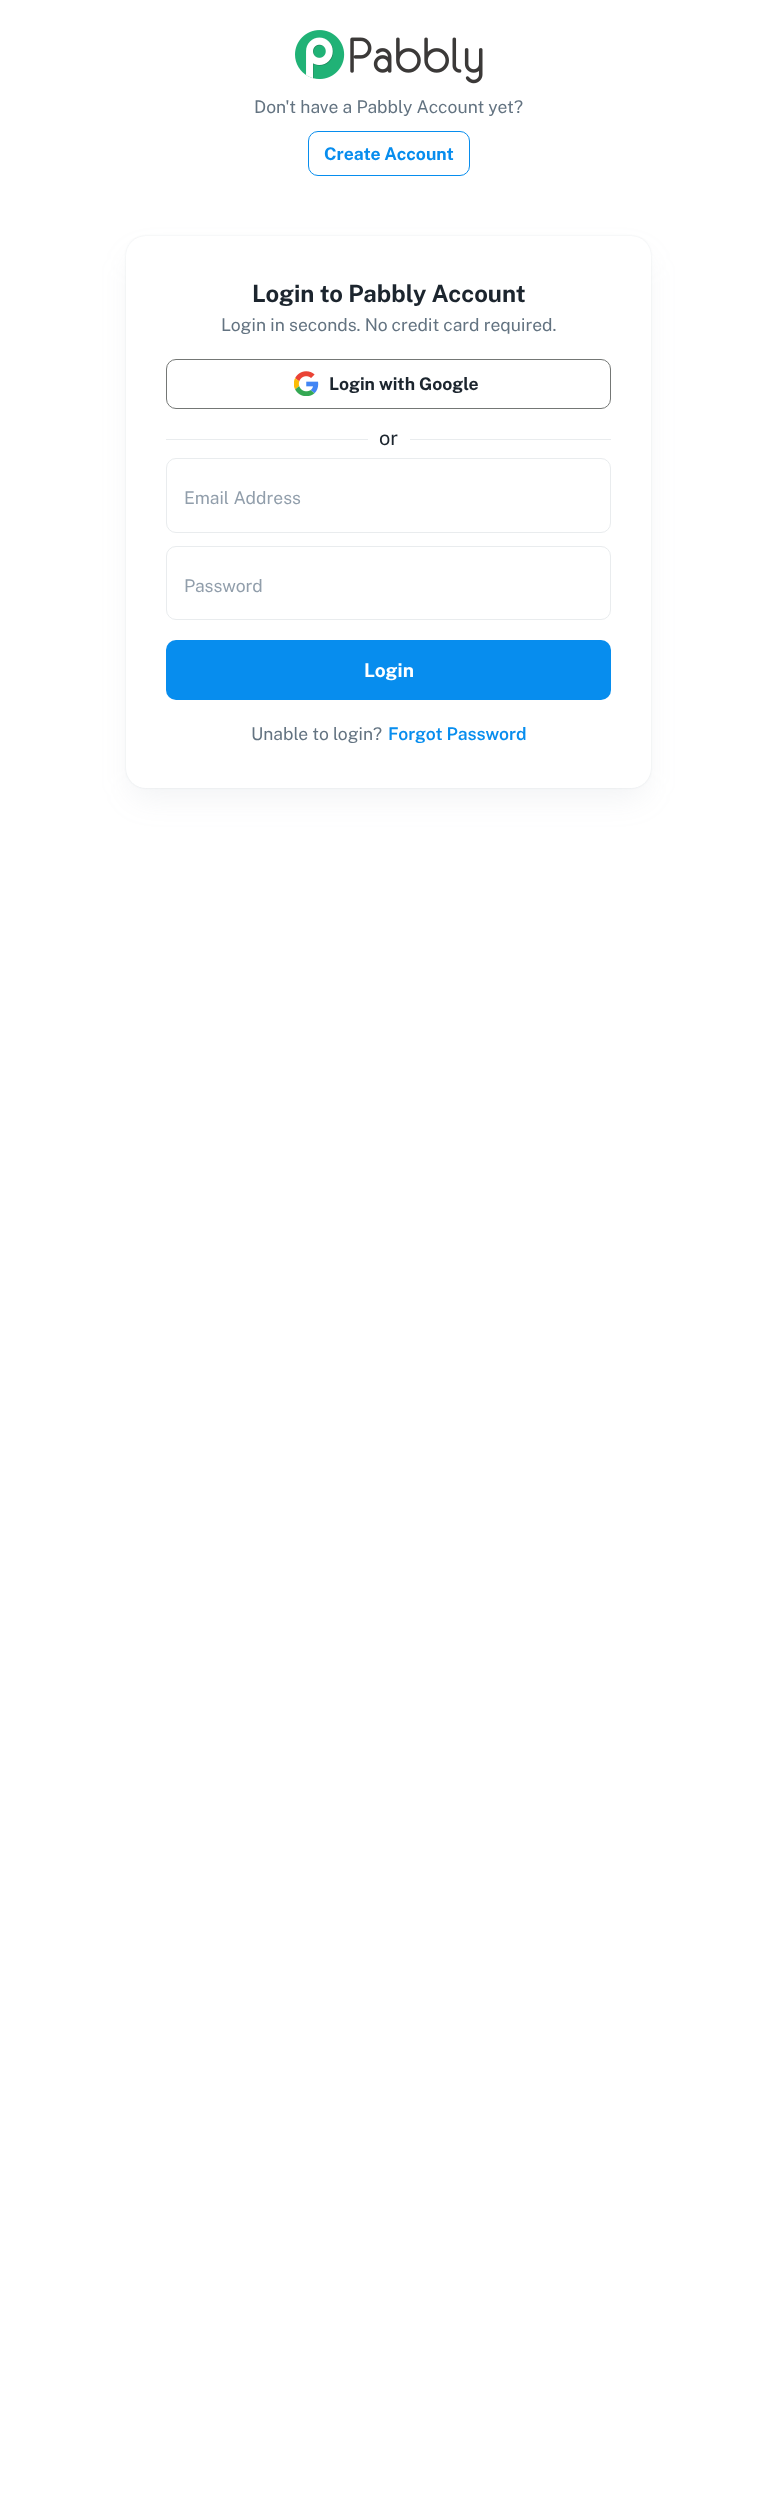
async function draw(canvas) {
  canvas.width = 777;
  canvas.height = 2501;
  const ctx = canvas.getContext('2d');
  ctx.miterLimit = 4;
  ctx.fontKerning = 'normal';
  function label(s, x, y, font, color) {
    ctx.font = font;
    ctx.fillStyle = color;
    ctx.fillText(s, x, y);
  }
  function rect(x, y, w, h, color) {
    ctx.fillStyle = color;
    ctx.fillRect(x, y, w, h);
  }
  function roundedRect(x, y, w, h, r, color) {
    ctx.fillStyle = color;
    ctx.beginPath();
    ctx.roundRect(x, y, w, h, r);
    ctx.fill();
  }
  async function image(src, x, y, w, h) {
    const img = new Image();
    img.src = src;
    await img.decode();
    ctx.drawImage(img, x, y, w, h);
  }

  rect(0, 0, 777, 2501, '#fff');
  await image('assets/img1.png', 295, 30, 188, 54);
  label('Don\'t have a Pabbly Account yet?', 254, 113, '100 17.5px Public Sans', '#637381');
  ctx.beginPath();
  ctx.roundRect(308.5, 131.5, 161, 44, 9.5);
  ctx.strokeStyle = '#078dee';
  ctx.stroke();
  label('Create Account', 324, 160, '100 17.5px "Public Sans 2"', '#078dee');
  ctx.fillStyle = '#919eab1f';
  ctx.filter = 'blur(15px)';
  ctx.beginPath();
  ctx.roundRect(131, 256, 515, 542, 15);
  ctx.fill();
  ctx.filter = 'none';
  ctx.fillStyle = '#919eab33';
  ctx.filter = 'blur(1px)';
  ctx.beginPath();
  ctx.roundRect(126, 236, 525, 552, 20);
  ctx.fill();
  ctx.filter = 'none';
  roundedRect(126, 236, 525, 552, 20, '#fff');
  label('Login to Pabbly Account', 252, 302, '100 23.75px "Public Sans 2"', '#1c252e');
  label('Login in seconds. No credit card required.', 221, 331, '100 17.5px Public Sans', '#637381');
  ctx.beginPath();
  ctx.roundRect(166.5, 359.5, 444, 49, 9.5);
  ctx.strokeStyle = '#747775';
  ctx.stroke();
  await image('assets/img2.png', 294, 371, 25, 25);
  label('Login with Google', 329, 390, '100 17.5px "Public Sans 2"', '#1c252e');
  rect(166, 439, 202, 1, '#e9ecee');
  label('or', 379, 445, '100 20px Public Sans', '#1c252e');
  rect(410, 439, 201, 1, '#e9ecee');
  ctx.beginPath();
  ctx.roundRect(166.5, 458.5, 444, 74, 9.5);
  ctx.strokeStyle = '#e9ecee';
  ctx.stroke();
  label('Email Address', 184, 504, '100 17.5px Public Sans', '#919eab');
  ctx.beginPath();
  ctx.roundRect(166.5, 546.5, 444, 73, 9.5);
  ctx.stroke();
  label('Password', 184, 592, '100 17.5px Public Sans', '#919eab');
  roundedRect(166, 640, 445, 60, 10, '#078dee');
  label('Login', 364, 677, '100 19px "Public Sans 2"', '#fff');
  label('Unable to login?', 251, 740, '100 17.5px Public Sans', '#637381');
  label('Forgot Password', 388, 740, '100 17.5px "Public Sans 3"', '#078dee');
}

draw(document.querySelector('canvas'));
